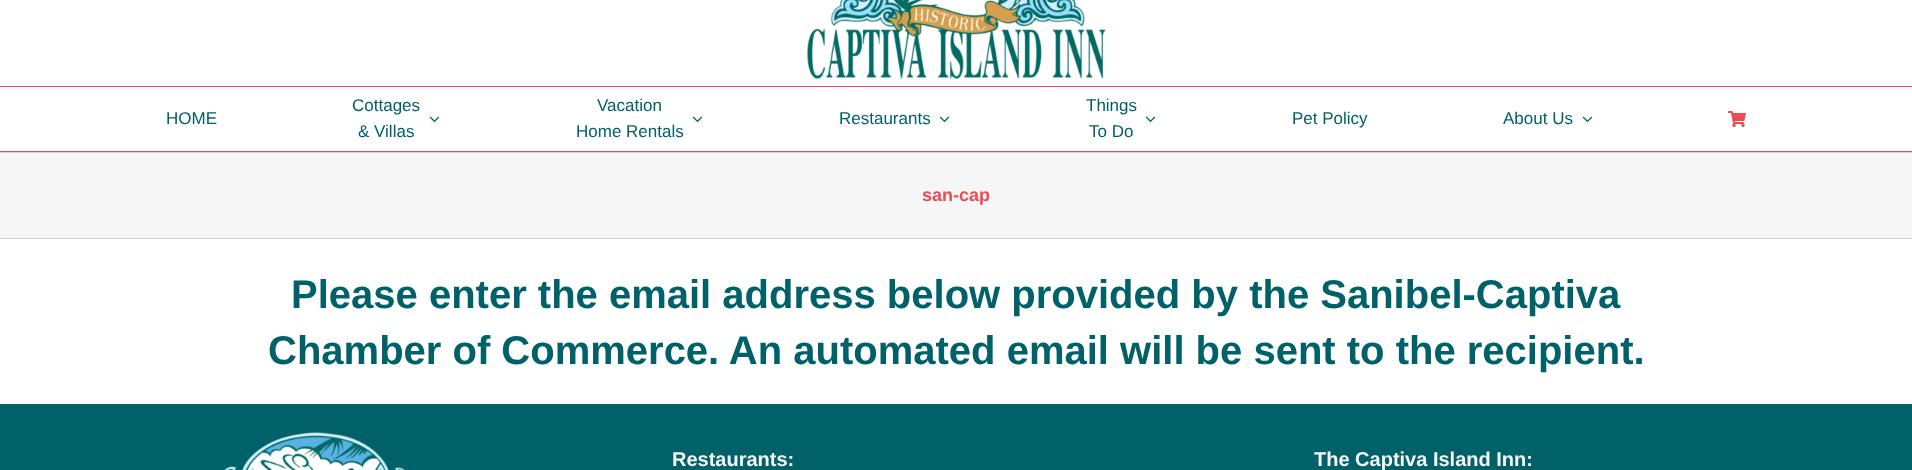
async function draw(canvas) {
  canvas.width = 1912;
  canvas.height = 470;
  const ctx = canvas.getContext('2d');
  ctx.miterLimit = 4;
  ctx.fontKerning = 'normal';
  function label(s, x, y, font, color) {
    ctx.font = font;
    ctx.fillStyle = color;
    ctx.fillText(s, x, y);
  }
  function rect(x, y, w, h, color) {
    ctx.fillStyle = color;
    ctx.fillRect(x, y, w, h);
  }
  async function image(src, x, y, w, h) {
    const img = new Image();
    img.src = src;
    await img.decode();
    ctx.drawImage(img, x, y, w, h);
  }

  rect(0, 0, 1912, 470, '#fff');
  await image('assets/img1.png', 807, 0, 299, 79);
  rect(0, 86, 1912, 1, '#e84d55');
  rect(0, 151, 1912, 1, '#e84d55');
  label('HOME', 166, 124, '17px Liberation Sans', '#006168');
  label('Cottages', 352, 111, '17px Liberation Sans', '#006168');
  label('& Villas', 358, 137, '17px Liberation Sans', '#006168');
  await image('assets/img2.png', 429, 116, 11, 7);
  label('Vacation', 597, 111, '17px Liberation Sans', '#006168');
  label('Home Rentals', 576, 137, '17px Liberation Sans', '#006168');
  await image('assets/img2.png', 692, 116, 11, 7);
  label('Restaurants', 839, 124, '17px Liberation Sans', '#006168');
  await image('assets/img2.png', 939, 116, 11, 7);
  label('Things', 1086, 111, '17px Liberation Sans', '#006168');
  label('To Do', 1089, 137, '17px Liberation Sans', '#006168');
  await image('assets/img2.png', 1145, 116, 11, 7);
  label('Pet Policy', 1292, 124, '17px Liberation Sans', '#006168');
  label('About Us', 1503, 124, '17px Liberation Sans', '#006168');
  await image('assets/img2.png', 1582, 116, 11, 7);
  await image('assets/img3.png', 1728, 111, 18, 16);
  rect(0, 153, 1912, 85, '#f6f6f6');
  rect(0, 152, 1912, 1, '#d2d3d4');
  rect(0, 238, 1912, 1, '#d2d3d4');
  label('san-cap', 922, 201, 'bold 18px Liberation Sans', '#e84d55');
  label('Please enter the email address below provided by the Sanibel-Captiva', 291, 308, 'bold 40px Liberation Sans', '#006168');
  label('Chamber of Commerce. An automated email will be sent to the recipient.', 268, 364, 'bold 40px Liberation Sans', '#006168');
  rect(0, 404, 1912, 66, '#006168');
  await image('assets/img4.png', 224, 432, 182, 38);
  label('Restaurants:', 672, 466, 'bold 20px Liberation Sans', '#f6f6f6');
  label('The Captiva Island Inn:', 1314, 466, 'bold 20px Liberation Sans', '#f6f6f6');
}

draw(document.querySelector('canvas'));
